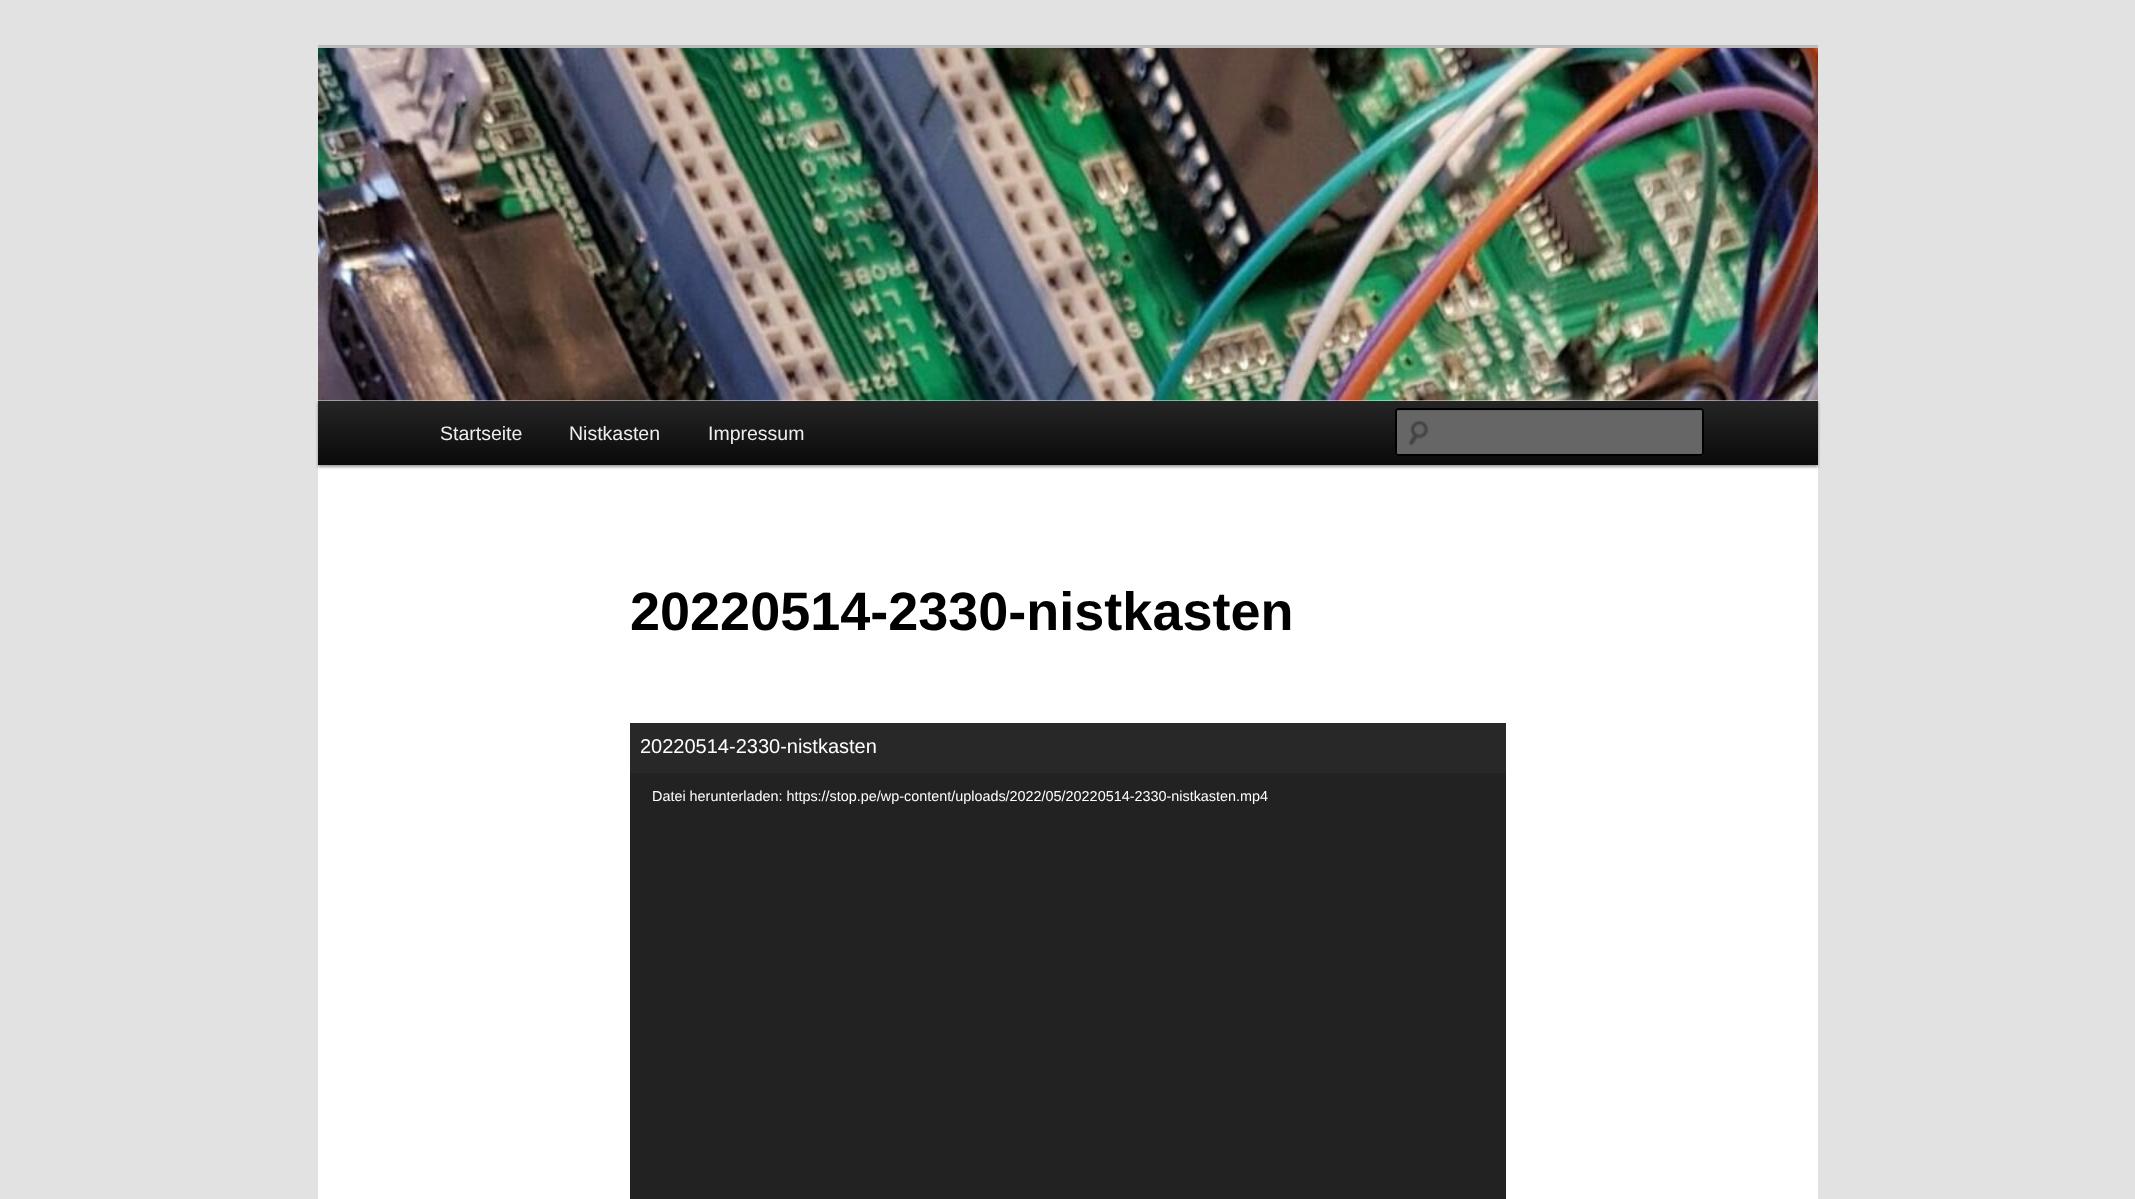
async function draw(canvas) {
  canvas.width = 2135;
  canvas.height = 1199;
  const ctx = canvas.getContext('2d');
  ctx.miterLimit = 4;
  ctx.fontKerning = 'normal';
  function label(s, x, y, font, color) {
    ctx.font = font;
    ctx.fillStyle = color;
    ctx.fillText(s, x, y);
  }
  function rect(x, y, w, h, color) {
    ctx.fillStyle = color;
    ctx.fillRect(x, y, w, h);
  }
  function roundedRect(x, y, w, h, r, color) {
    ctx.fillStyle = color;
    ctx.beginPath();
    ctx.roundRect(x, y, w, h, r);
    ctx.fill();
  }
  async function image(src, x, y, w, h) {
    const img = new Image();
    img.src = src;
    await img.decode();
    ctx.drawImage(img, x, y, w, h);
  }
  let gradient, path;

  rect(0, 0, 2135, 1199, '#e2e2e2');
  rect(318, 400, 1500, 799, '#fff');
  rect(318, 45, 1500, 3, '#bbb');
  ctx.fillStyle = '#00000066';
  ctx.filter = 'blur(1.5px)';
  ctx.beginPath();
  ctx.rect(318, 402, 1500, 65);
  ctx.fill();
  ctx.filter = 'none';
  await image('assets/img1.png', 318, 48, 1500, 353);
  gradient = ctx.createLinearGradient(1068, 400, 1068, 465);
  gradient.addColorStop(0, '#252525');
  gradient.addColorStop(1, '#0a0a0a');
  ctx.fillStyle = gradient;
  ctx.fillRect(318, 401, 1500, 64);
  label('Startseite', 440, 440, '19.5px Liberation Sans', '#eee');
  label('Nistkasten', 569, 440, '19.5px Liberation Sans', '#eee');
  label('Impressum', 708, 440, '19.5px Liberation Sans', '#eee');
  roundedRect(1395, 408, 309, 48, 3, '#666');
  await image('assets/img2.png', 1408, 420, 21, 26);
  ctx.fillStyle = '#5c5c5c';
  path = new Path2D('M1398 411H1701C1702 411 1702 412 1702 412V455C1703 455 1703 454 1703 454V412C1703 411 1702 410 1702 410H1398C1398 410 1397 411 1397 411Z');
  ctx.fill(path);
  ctx.beginPath();
  ctx.roundRect(1396, 409, 307, 46, 2);
  ctx.strokeStyle = '#000';
  ctx.lineWidth = 2;
  ctx.stroke();
  label('20220514-2330-nistkasten', 630, 630, 'bold 54px Liberation Sans', '#000');
  rect(630, 723, 876, 50, '#282828');
  label('20220514-2330-nistkasten', 640, 753, '20px Liberation Sans', '#fff');
  rect(630, 773, 876, 426, '#222');
  label('Datei herunterladen: https://stop.pe/wp-content/uploads/2022/05/20220514-2330-nistkasten.mp4', 652, 801, '14.4px Liberation Sans', '#fff');
}

draw(document.querySelector('canvas'));
